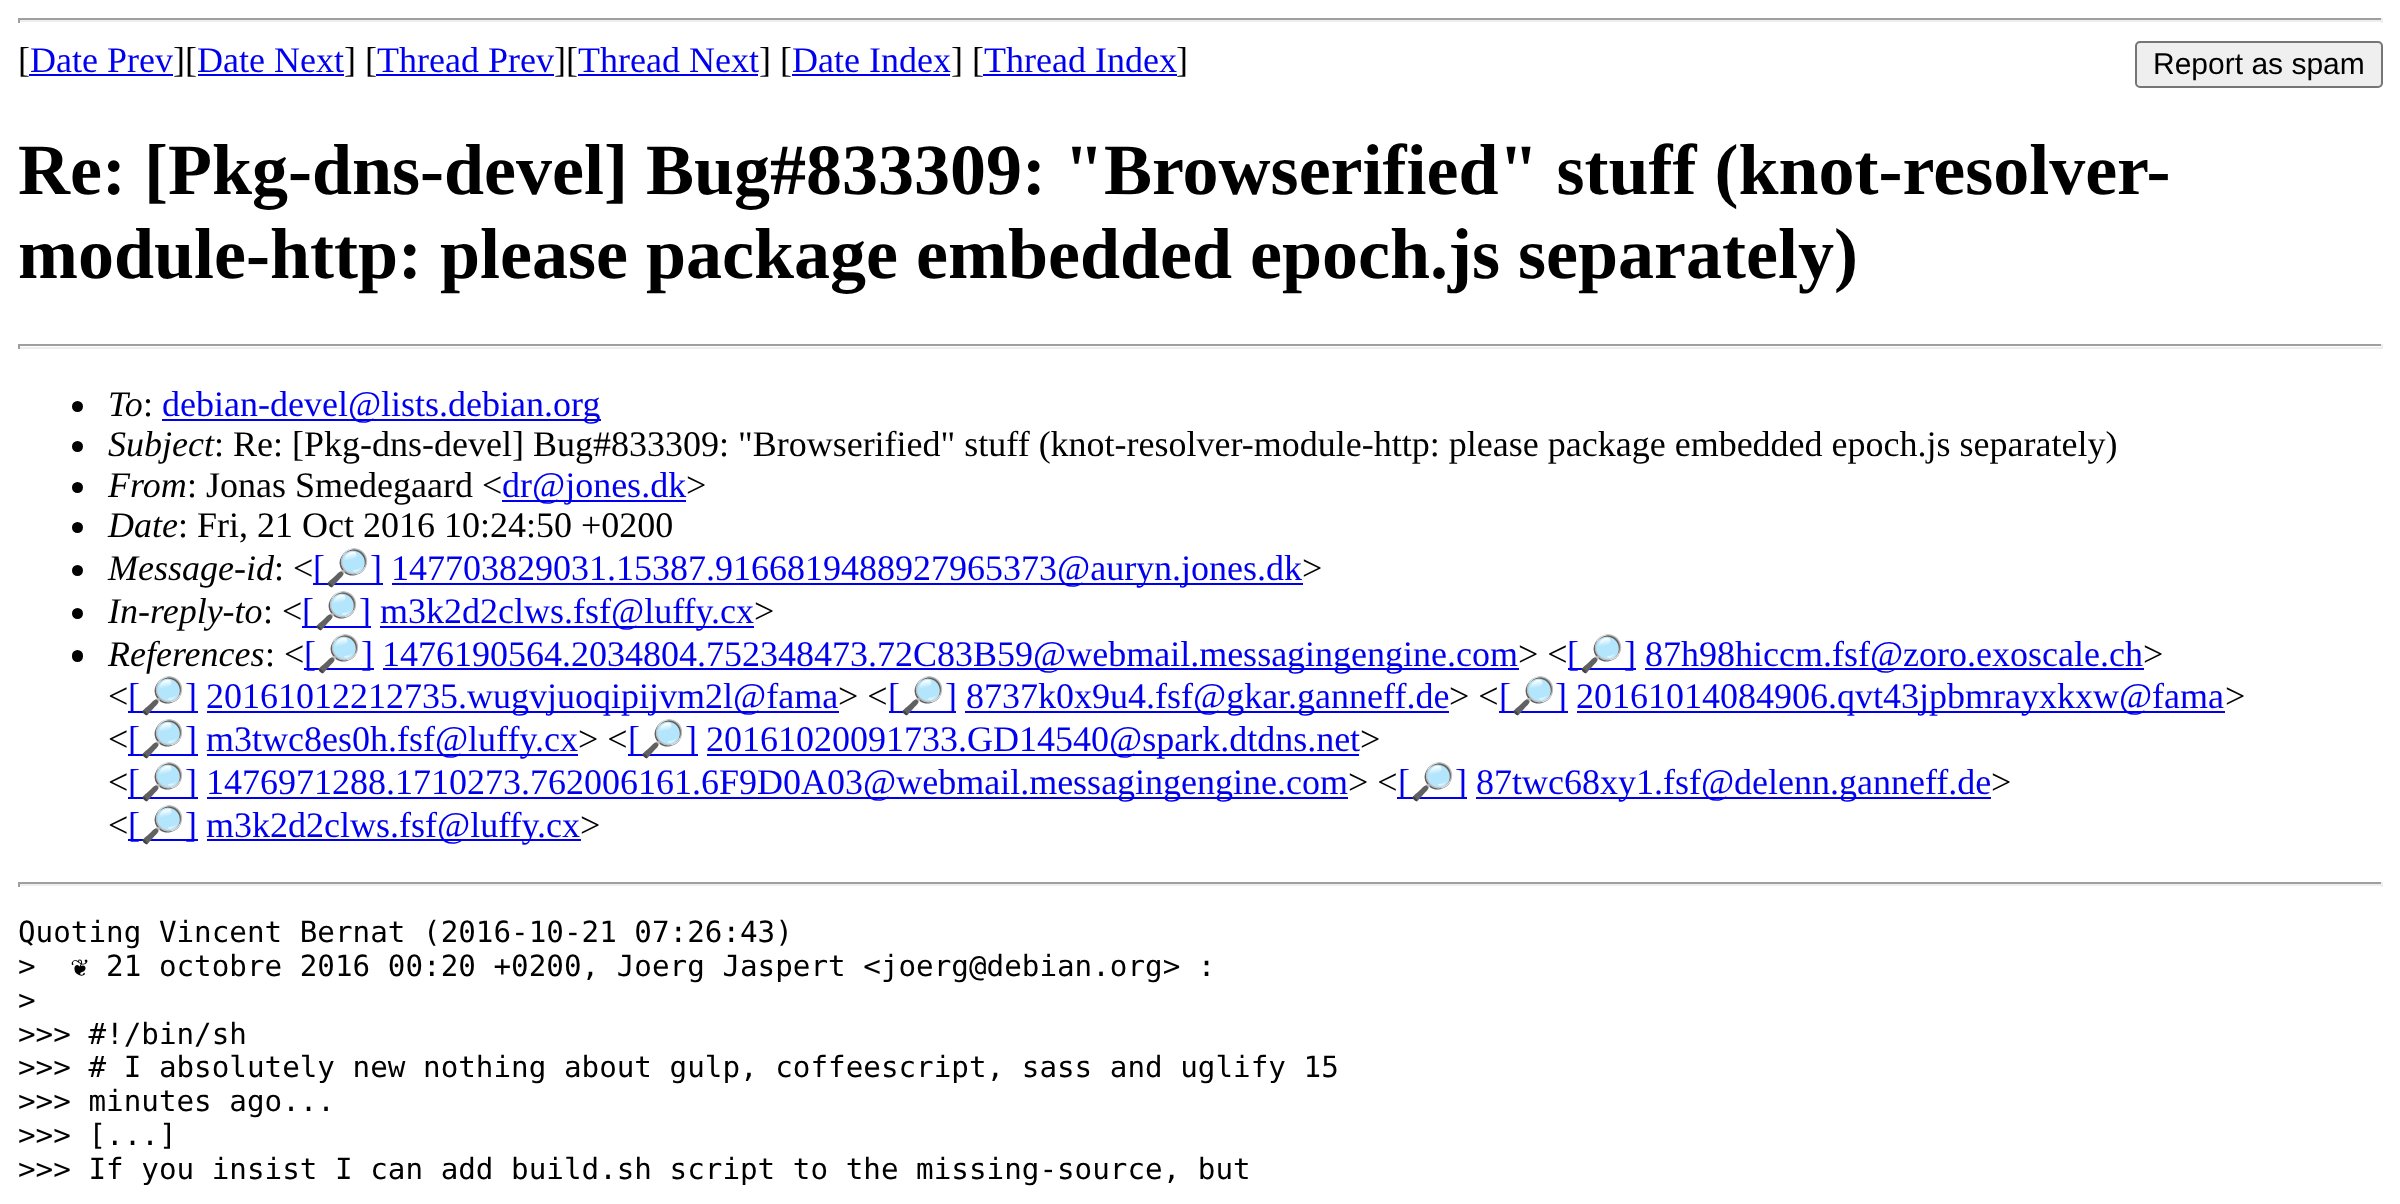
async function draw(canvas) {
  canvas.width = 2400;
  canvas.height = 1204;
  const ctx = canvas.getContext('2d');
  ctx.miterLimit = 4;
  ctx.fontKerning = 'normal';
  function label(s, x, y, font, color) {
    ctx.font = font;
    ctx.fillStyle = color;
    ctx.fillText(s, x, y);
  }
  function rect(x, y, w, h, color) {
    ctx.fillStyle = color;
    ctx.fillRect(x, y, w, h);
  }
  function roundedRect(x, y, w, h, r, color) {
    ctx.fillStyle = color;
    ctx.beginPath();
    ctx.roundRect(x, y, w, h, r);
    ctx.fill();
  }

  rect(0, 0, 2400, 1204, '#fff');
  rect(18, 18, 2365, 2, '#9f9f9f');
  rect(2381, 18, 2, 5, '#eee');
  rect(18, 20, 2365, 2, '#eee');
  rect(18, 18, 2, 5, '#9f9f9f');
  label('[', 18, 72, '36px Liberation Serif', '#000');
  label('Date Prev', 30, 72, '36px Liberation Serif', '#00e');
  rect(29, 74, 144, 2, '#00e');
  label('][', 173, 72, '36px Liberation Serif', '#000');
  label('Date Next', 197, 72, '36px Liberation Serif', '#00e');
  rect(198, 74, 146, 2, '#00e');
  label('] [', 344, 72, '36px Liberation Serif', '#000');
  label('Thread Prev', 377, 72, '36px Liberation Serif', '#00e');
  rect(376, 74, 178, 2, '#00e');
  label('][', 554, 72, '36px Liberation Serif', '#000');
  label('Thread Next', 578, 72, '36px Liberation Serif', '#00e');
  rect(578, 74, 180, 2, '#00e');
  label('] [', 759, 72, '36px Liberation Serif', '#000');
  label('Date Index', 792, 72, '36px Liberation Serif', '#00e');
  rect(792, 74, 158, 2, '#00e');
  label('] [', 951, 72, '36px Liberation Serif', '#000');
  label('Thread Index', 984, 72, '36px Liberation Serif', '#00e');
  rect(983, 74, 194, 2, '#00e');
  label(']', 1176, 72, '36px Liberation Serif', '#000');
  ctx.fillStyle = '#efefef';
  ctx.beginPath();
  ctx.roundRect(2136, 42, 246, 45, 4);
  ctx.fill();
  ctx.strokeStyle = '#767676';
  ctx.lineWidth = 2;
  ctx.stroke();
  label('Report as spam', 2153, 74, '30px Liberation Sans', '#000');
  label('Re: [Pkg-dns-devel] Bug#833309: "Browserified" stuff (knot-resolver-', 18, 194, 'bold 72px Liberation Serif', '#000');
  label('module-http: please package embedded epoch.js separately)', 18, 278, 'bold 72px Liberation Serif', '#000');
  rect(18, 344, 2365, 2, '#9f9f9f');
  rect(2381, 344, 2, 5, '#eee');
  rect(18, 347, 2365, 2, '#eee');
  rect(18, 344, 2, 5, '#9f9f9f');
  ctx.fillStyle = '#000';
  ctx.beginPath();
  ctx.arc(77.5, 406.5, 5.5, 0, 2 * Math.PI);
  ctx.fill();
  label('To', 108, 416, 'italic 36px Liberation Serif', '#000');
  label(':', 143, 416, '36px Liberation Serif', '#000');
  rect(162, 419, 439, 2, '#00e');
  label('debian-devel@lists.debian.org', 162, 416, '36px Liberation Serif', '#00e');
  ctx.fillStyle = '#000';
  ctx.beginPath();
  ctx.arc(77.5, 446.5, 5.5, 0, 2 * Math.PI);
  ctx.fill();
  label('Subject', 108, 456, 'italic 36px Liberation Serif', '#000');
  label(': Re: [Pkg-dns-devel] Bug#833309: "Browserified" stuff (knot-resolver-module-http: please package embedded epoch.js separately)', 214, 456, '36px Liberation Serif', '#000');
  ctx.beginPath();
  ctx.arc(77.5, 487.5, 5.5, 0, 2 * Math.PI);
  ctx.fill();
  label('From', 108, 497, 'italic 36px Liberation Serif', '#000');
  label(': Jonas Smedegaard <', 187, 497, '36px Liberation Serif', '#000');
  rect(502, 500, 184, 2, '#00e');
  label('dr@jones.dk', 502, 497, '36px Liberation Serif', '#00e');
  label('>', 686, 497, '36px Liberation Serif', '#000');
  ctx.beginPath();
  ctx.arc(77.5, 527.5, 5.5, 0, 2 * Math.PI);
  ctx.fill();
  label('Date', 108, 537, 'italic 36px Liberation Serif', '#000');
  label(': Fri, 21 Oct 2016 10:24:50 +0200', 178, 537, '36px Liberation Serif', '#000');
  ctx.beginPath();
  ctx.arc(77.5, 570.5, 5.5, 0, 2 * Math.PI);
  ctx.fill();
  label('Message-id', 108, 580, 'italic 36px Liberation Serif', '#000');
  label(': <', 274, 580, '36px Liberation Serif', '#000');
  rect(313, 583, 70, 2, '#00e');
  label('[', 313, 580, '36px Liberation Serif', '#00e');
  label('🔎', 325, 580, '36px Noto Color Emoji', '#00e');
  label(']', 370, 580, '36px Liberation Serif', '#00e');
  rect(392, 583, 911, 2, '#00e');
  label('147703829031.15387.9166819488927965373@auryn.jones.dk', 391, 580, '36px Liberation Serif', '#00e');
  label('>', 1302, 580, '36px Liberation Serif', '#000');
  ctx.beginPath();
  ctx.arc(77.5, 613.5, 5.5, 0, 2 * Math.PI);
  ctx.fill();
  label('In-reply-to', 108, 623, 'italic 36px Liberation Serif', '#000');
  label(': <', 263, 623, '36px Liberation Serif', '#000');
  rect(302, 626, 69, 2, '#00e');
  label('[', 302, 623, '36px Liberation Serif', '#00e');
  label('🔎', 314, 623, '36px Noto Color Emoji', '#00e');
  label(']', 359, 623, '36px Liberation Serif', '#00e');
  rect(380, 626, 374, 2, '#00e');
  label('m3k2d2clws.fsf@luffy.cx', 380, 623, '36px Liberation Serif', '#00e');
  label('>', 754, 623, '36px Liberation Serif', '#000');
  roundedRect(72, 650, 11, 12, 5.5, '#000');
  label('References', 108, 666, 'italic 36px Liberation Serif', '#000');
  label(': <', 265, 666, '36px Liberation Serif', '#000');
  rect(304, 668, 70, 2, '#00e');
  label('[', 304, 666, '36px Liberation Serif', '#00e');
  label('🔎', 316, 666, '36px Noto Color Emoji', '#00e');
  label(']', 361, 666, '36px Liberation Serif', '#00e');
  rect(383, 668, 1136, 2, '#00e');
  label('1476190564.2034804.752348473.72C83B59@webmail.messagingengine.com', 382, 666, '36px Liberation Serif', '#00e');
  label('> <', 1518, 666, '36px Liberation Serif', '#000');
  rect(1568, 668, 68, 2, '#00e');
  label('[', 1567, 666, '36px Liberation Serif', '#00e');
  label('🔎', 1579, 666, '36px Noto Color Emoji', '#00e');
  label(']', 1624, 666, '36px Liberation Serif', '#00e');
  rect(1645, 668, 499, 2, '#00e');
  label('87h98hiccm.fsf@zoro.exoscale.ch', 1645, 666, '36px Liberation Serif', '#00e');
  label('>', 2143, 666, '36px Liberation Serif', '#000');
  label('<', 108, 708, '36px Liberation Serif', '#000');
  rect(128, 711, 70, 2, '#00e');
  label('[', 128, 708, '36px Liberation Serif', '#00e');
  label('🔎', 140, 708, '36px Noto Color Emoji', '#00e');
  label(']', 185, 708, '36px Liberation Serif', '#00e');
  rect(207, 711, 632, 2, '#00e');
  label('20161012212735.wugvjuoqipijvm2l@fama', 206, 708, '36px Liberation Serif', '#00e');
  label('> <', 838, 708, '36px Liberation Serif', '#000');
  rect(889, 711, 67, 2, '#00e');
  label('[', 888, 708, '36px Liberation Serif', '#00e');
  label('🔎', 900, 708, '36px Noto Color Emoji', '#00e');
  label(']', 945, 708, '36px Liberation Serif', '#00e');
  rect(965, 711, 484, 2, '#00e');
  label('8737k0x9u4.fsf@gkar.ganneff.de', 966, 708, '36px Liberation Serif', '#00e');
  label('> <', 1449, 708, '36px Liberation Serif', '#000');
  rect(1499, 711, 69, 2, '#00e');
  label('[', 1499, 708, '36px Liberation Serif', '#00e');
  label('🔎', 1511, 708, '36px Noto Color Emoji', '#00e');
  label(']', 1555, 708, '36px Liberation Serif', '#00e');
  rect(1577, 711, 648, 2, '#00e');
  label('20161014084906.qvt43jpbmrayxkxw@fama', 1576, 708, '36px Liberation Serif', '#00e');
  label('>', 2225, 708, '36px Liberation Serif', '#000');
  label('<', 108, 751, '36px Liberation Serif', '#000');
  rect(128, 754, 70, 2, '#00e');
  label('[', 128, 751, '36px Liberation Serif', '#00e');
  label('🔎', 140, 751, '36px Noto Color Emoji', '#00e');
  label(']', 185, 751, '36px Liberation Serif', '#00e');
  rect(207, 754, 371, 2, '#00e');
  label('m3twc8es0h.fsf@luffy.cx', 206, 751, '36px Liberation Serif', '#00e');
  label('> <', 578, 751, '36px Liberation Serif', '#000');
  rect(628, 754, 70, 2, '#00e');
  label('[', 628, 751, '36px Liberation Serif', '#00e');
  label('🔎', 640, 751, '36px Noto Color Emoji', '#00e');
  label(']', 685, 751, '36px Liberation Serif', '#00e');
  rect(707, 754, 652, 2, '#00e');
  label('20161020091733.GD14540@spark.dtdns.net', 706, 751, '36px Liberation Serif', '#00e');
  label('>', 1360, 751, '36px Liberation Serif', '#000');
  label('<', 108, 794, '36px Liberation Serif', '#000');
  rect(128, 797, 70, 2, '#00e');
  label('[', 128, 794, '36px Liberation Serif', '#00e');
  label('🔎', 140, 794, '36px Noto Color Emoji', '#00e');
  label(']', 185, 794, '36px Liberation Serif', '#00e');
  rect(207, 797, 1141, 2, '#00e');
  label('1476971288.1710273.762006161.6F9D0A03@webmail.messagingengine.com', 206, 794, '36px Liberation Serif', '#00e');
  label('> <', 1348, 794, '36px Liberation Serif', '#000');
  rect(1397, 797, 70, 2, '#00e');
  label('[', 1398, 794, '36px Liberation Serif', '#00e');
  label('🔎', 1410, 794, '36px Noto Color Emoji', '#00e');
  label(']', 1455, 794, '36px Liberation Serif', '#00e');
  rect(1476, 797, 515, 2, '#00e');
  label('87twc68xy1.fsf@delenn.ganneff.de', 1476, 794, '36px Liberation Serif', '#00e');
  label('>', 1991, 794, '36px Liberation Serif', '#000');
  label('<', 108, 837, '36px Liberation Serif', '#000');
  rect(128, 839, 70, 2, '#00e');
  label('[', 128, 837, '36px Liberation Serif', '#00e');
  label('🔎', 140, 837, '36px Noto Color Emoji', '#00e');
  label(']', 185, 837, '36px Liberation Serif', '#00e');
  rect(207, 839, 374, 2, '#00e');
  label('m3k2d2clws.fsf@luffy.cx', 206, 837, '36px Liberation Serif', '#00e');
  label('>', 580, 837, '36px Liberation Serif', '#000');
  rect(18, 882, 2365, 2, '#9f9f9f');
  rect(2381, 882, 2, 5, '#eee');
  rect(18, 884, 2365, 2, '#eee');
  rect(18, 882, 2, 5, '#9f9f9f');
  label('Quoting Vincent Bernat (2016-10-21 07:26:43)', 18, 942, '29.25px DejaVu Sans Mono', '#000');
  label('>  ❦ 21 octobre 2016 00:20 +0200, Joerg Jaspert <joerg@debian.org> :', 18, 976, '29.25px DejaVu Sans Mono', '#000');
  label('>', 18, 1010, '29.25px DejaVu Sans Mono', '#000');
  label('>>> #!/bin/sh', 18, 1044, '29.25px DejaVu Sans Mono', '#000');
  label('>>> # I absolutely new nothing about gulp, coffeescript, sass and uglify 15', 18, 1077, '29.25px DejaVu Sans Mono', '#000');
  label('>>> minutes ago...', 18, 1111, '29.25px DejaVu Sans Mono', '#000');
  label('>>> [...]', 18, 1145, '29.25px DejaVu Sans Mono', '#000');
  label('>>> If you insist I can add build.sh script to the missing-source, but', 18, 1179, '29.25px DejaVu Sans Mono', '#000');
}

draw(document.querySelector('canvas'));
